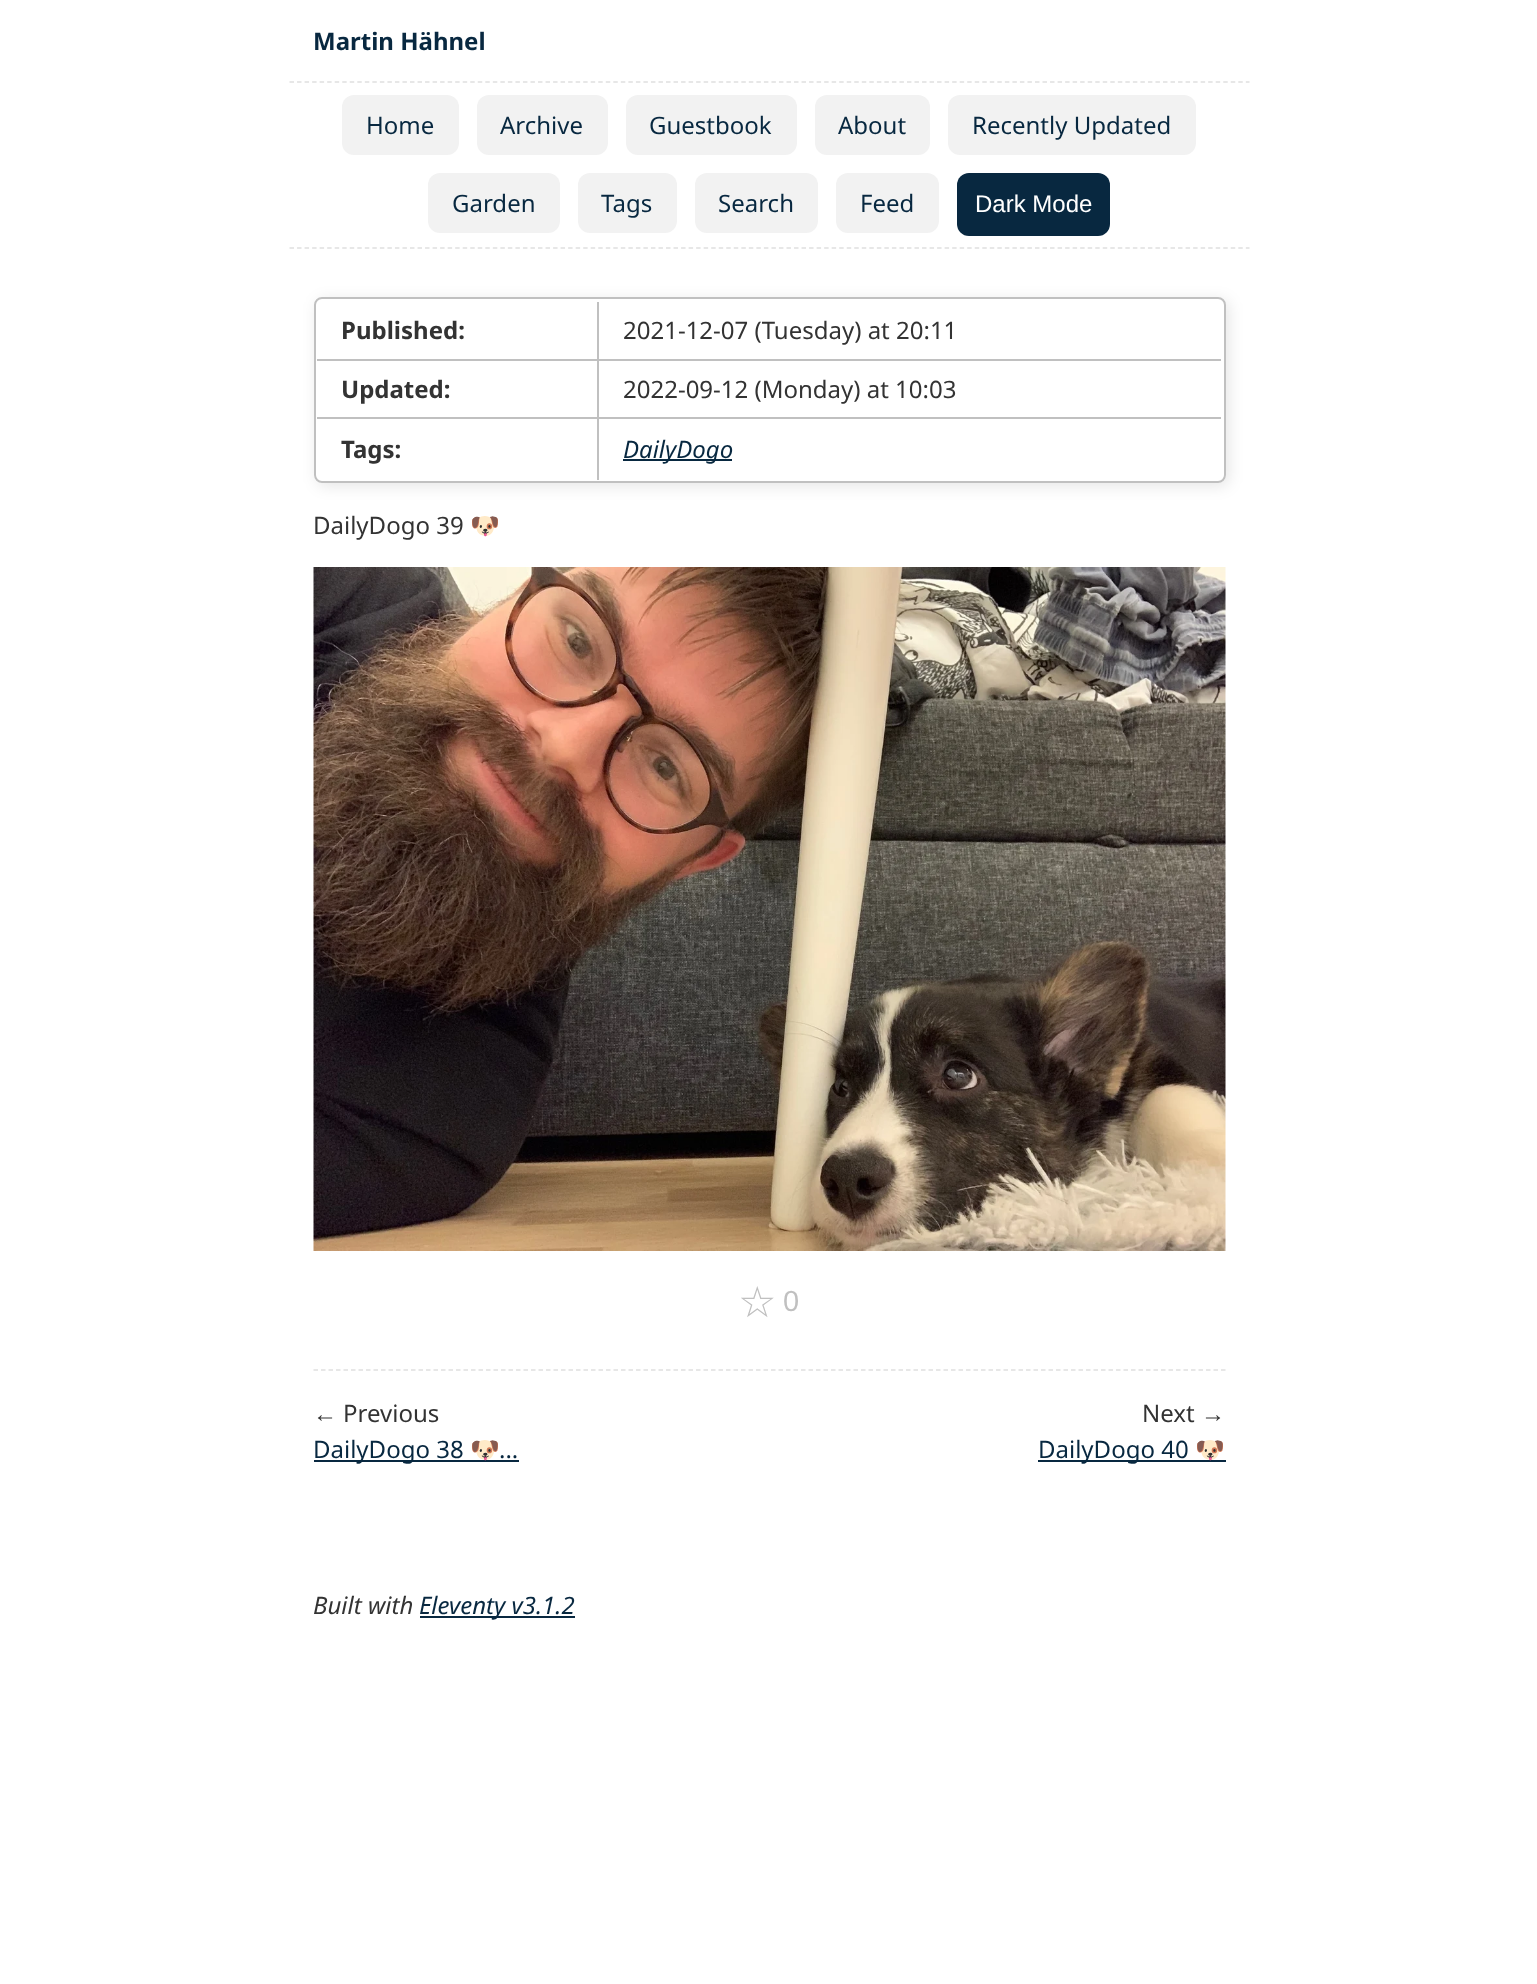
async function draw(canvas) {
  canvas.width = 1537;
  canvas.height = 1984;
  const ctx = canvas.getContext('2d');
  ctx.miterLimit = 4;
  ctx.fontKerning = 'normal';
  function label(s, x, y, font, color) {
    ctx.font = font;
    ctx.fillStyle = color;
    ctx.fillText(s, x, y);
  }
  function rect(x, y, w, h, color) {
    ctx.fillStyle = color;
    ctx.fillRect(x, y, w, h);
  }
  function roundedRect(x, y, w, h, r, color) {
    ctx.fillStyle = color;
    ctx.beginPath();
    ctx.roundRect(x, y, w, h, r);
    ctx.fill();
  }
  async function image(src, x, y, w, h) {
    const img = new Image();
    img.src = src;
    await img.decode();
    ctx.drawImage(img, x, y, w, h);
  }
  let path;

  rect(0, 0, 1537, 1984, '#fff');
  path = new Path2D('M289.5 82H1249.5');
  ctx.strokeStyle = '#e0e0e0';
  ctx.lineWidth = 1.5;
  ctx.setLineDash([4.5, 3.03]);
  ctx.stroke(path);
  label('Martin Hähnel', 313, 50, 'bold 24px Noto Sans', '#082840');
  path = new Path2D('M289.5 248H1249.5');
  ctx.stroke(path);
  roundedRect(342, 95, 117, 60, 12, '#f2f2f2');
  label('Home', 366, 134, '24px Noto Sans', '#082840');
  roundedRect(477, 95, 131, 60, 12, '#f2f2f2');
  label('Archive', 500, 134, '24px Noto Sans', '#082840');
  roundedRect(626, 95, 171, 60, 12, '#f2f2f2');
  label('Guestbook', 649, 134, '24px Noto Sans', '#082840');
  roundedRect(815, 95, 115, 60, 12, '#f2f2f2');
  label('About', 838, 134, '24px Noto Sans', '#082840');
  roundedRect(948, 95, 248, 60, 12, '#f2f2f2');
  label('Recently Updated', 972, 134, '24px Noto Sans', '#082840');
  roundedRect(428, 173, 132, 60, 12, '#f2f2f2');
  label('Garden', 452, 212, '24px Noto Sans', '#082840');
  roundedRect(578, 173, 99, 60, 12, '#f2f2f2');
  label('Tags', 601, 212, '24px Noto Sans', '#082840');
  roundedRect(695, 173, 123, 60, 12, '#f2f2f2');
  label('Search', 718, 212, '24px Noto Sans', '#082840');
  roundedRect(836, 173, 103, 60, 12, '#f2f2f2');
  label('Feed', 860, 212, '24px Noto Sans', '#082840');
  roundedRect(957, 173, 153, 63, 12, '#082840');
  label('Dark Mode', 975, 212, '24px Liberation Sans', '#fff');
  ctx.save();
  path = new Path2D('M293 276H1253V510H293ZM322 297H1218C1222.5 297 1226 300.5 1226 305V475C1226 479.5 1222.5 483 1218 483H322C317.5 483 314 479.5 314 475V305C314 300.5 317.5 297 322 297Z');
  ctx.clip(path, 'evenodd');
  ctx.fillStyle = '#0000001a';
  ctx.filter = 'blur(7.5px)';
  ctx.beginPath();
  ctx.roundRect(317, 300, 912, 186, 8);
  ctx.fill();
  ctx.filter = 'none';
  ctx.restore();
  ctx.beginPath();
  ctx.roundRect(315, 298, 910, 184, 7);
  ctx.strokeStyle = '#c0c0c0';
  ctx.lineWidth = 2;
  ctx.setLineDash([]);
  ctx.stroke();
  label('Published:', 341, 339, 'bold 24px Noto Sans', '#333');
  rect(597, 359, 624, 2, '#c0c0c0');
  rect(597, 417, 624, 2, '#c0c0c0');
  rect(597, 417, 2, 63, '#c0c0c0');
  rect(317, 417, 282, 2, '#c0c0c0');
  rect(597, 359, 2, 60, '#c0c0c0');
  rect(317, 359, 282, 2, '#c0c0c0');
  rect(597, 302, 2, 58, '#c0c0c0');
  label('2021-12-07 (Tuesday) at 20:11', 623, 339, '24px Noto Sans', '#333');
  label('Updated:', 341, 398, 'bold 24px Noto Sans', '#333');
  label('2022-09-12 (Monday) at 10:03', 623, 398, '24px Noto Sans', '#333');
  label('Tags:', 341, 458, 'bold 24px Noto Sans', '#333');
  rect(623, 459, 109, 2, '#082840');
  label('DailyDogo', 623, 458, 'italic 24px Noto Sans', '#082840');
  label('DailyDogo 39', 313, 534, '24px Noto Sans', '#333');
  label('🐶', 470, 534, '24px Noto Color Emoji', '#333');
  await image('assets/img1.png', 313, 567, 913, 684);
  label('☆', 738, 1317, '43px DejaVu Sans', '#c0c0c0');
  label('0', 783, 1311, '29px Liberation Sans', '#c0c0c0');
  path = new Path2D('M313.5 1370H1225.5');
  ctx.strokeStyle = '#e0e0e0';
  ctx.lineWidth = 1.5;
  ctx.setLineDash([4.5, 3]);
  ctx.stroke(path);
  label('←', 313, 1422, '24px Liberation Sans', '#333');
  label('Previous', 343, 1422, '24px Noto Sans', '#333');
  rect(314, 1460, 205, 2, '#082840');
  label('DailyDogo 38', 313, 1458, '24px Noto Sans', '#082840');
  label('🐶', 470, 1458, '24px Noto Color Emoji', '#082840');
  label('...', 499, 1458, '24px Noto Sans', '#082840');
  label('Next', 1142, 1422, '24px Noto Sans', '#333');
  label('→', 1201, 1422, '24px Liberation Sans', '#333');
  rect(1038, 1460, 188, 2, '#082840');
  label('DailyDogo 40', 1038, 1458, '24px Noto Sans', '#082840');
  label('🐶', 1195, 1458, '24px Noto Color Emoji', '#082840');
  label('Built with', 313, 1614, 'italic 24px Noto Sans', '#333');
  rect(420, 1616, 155, 2, '#082840');
  label('Eleventy v3.1.2', 419, 1614, 'italic 24px Noto Sans', '#082840');
}

draw(document.querySelector('canvas'));
